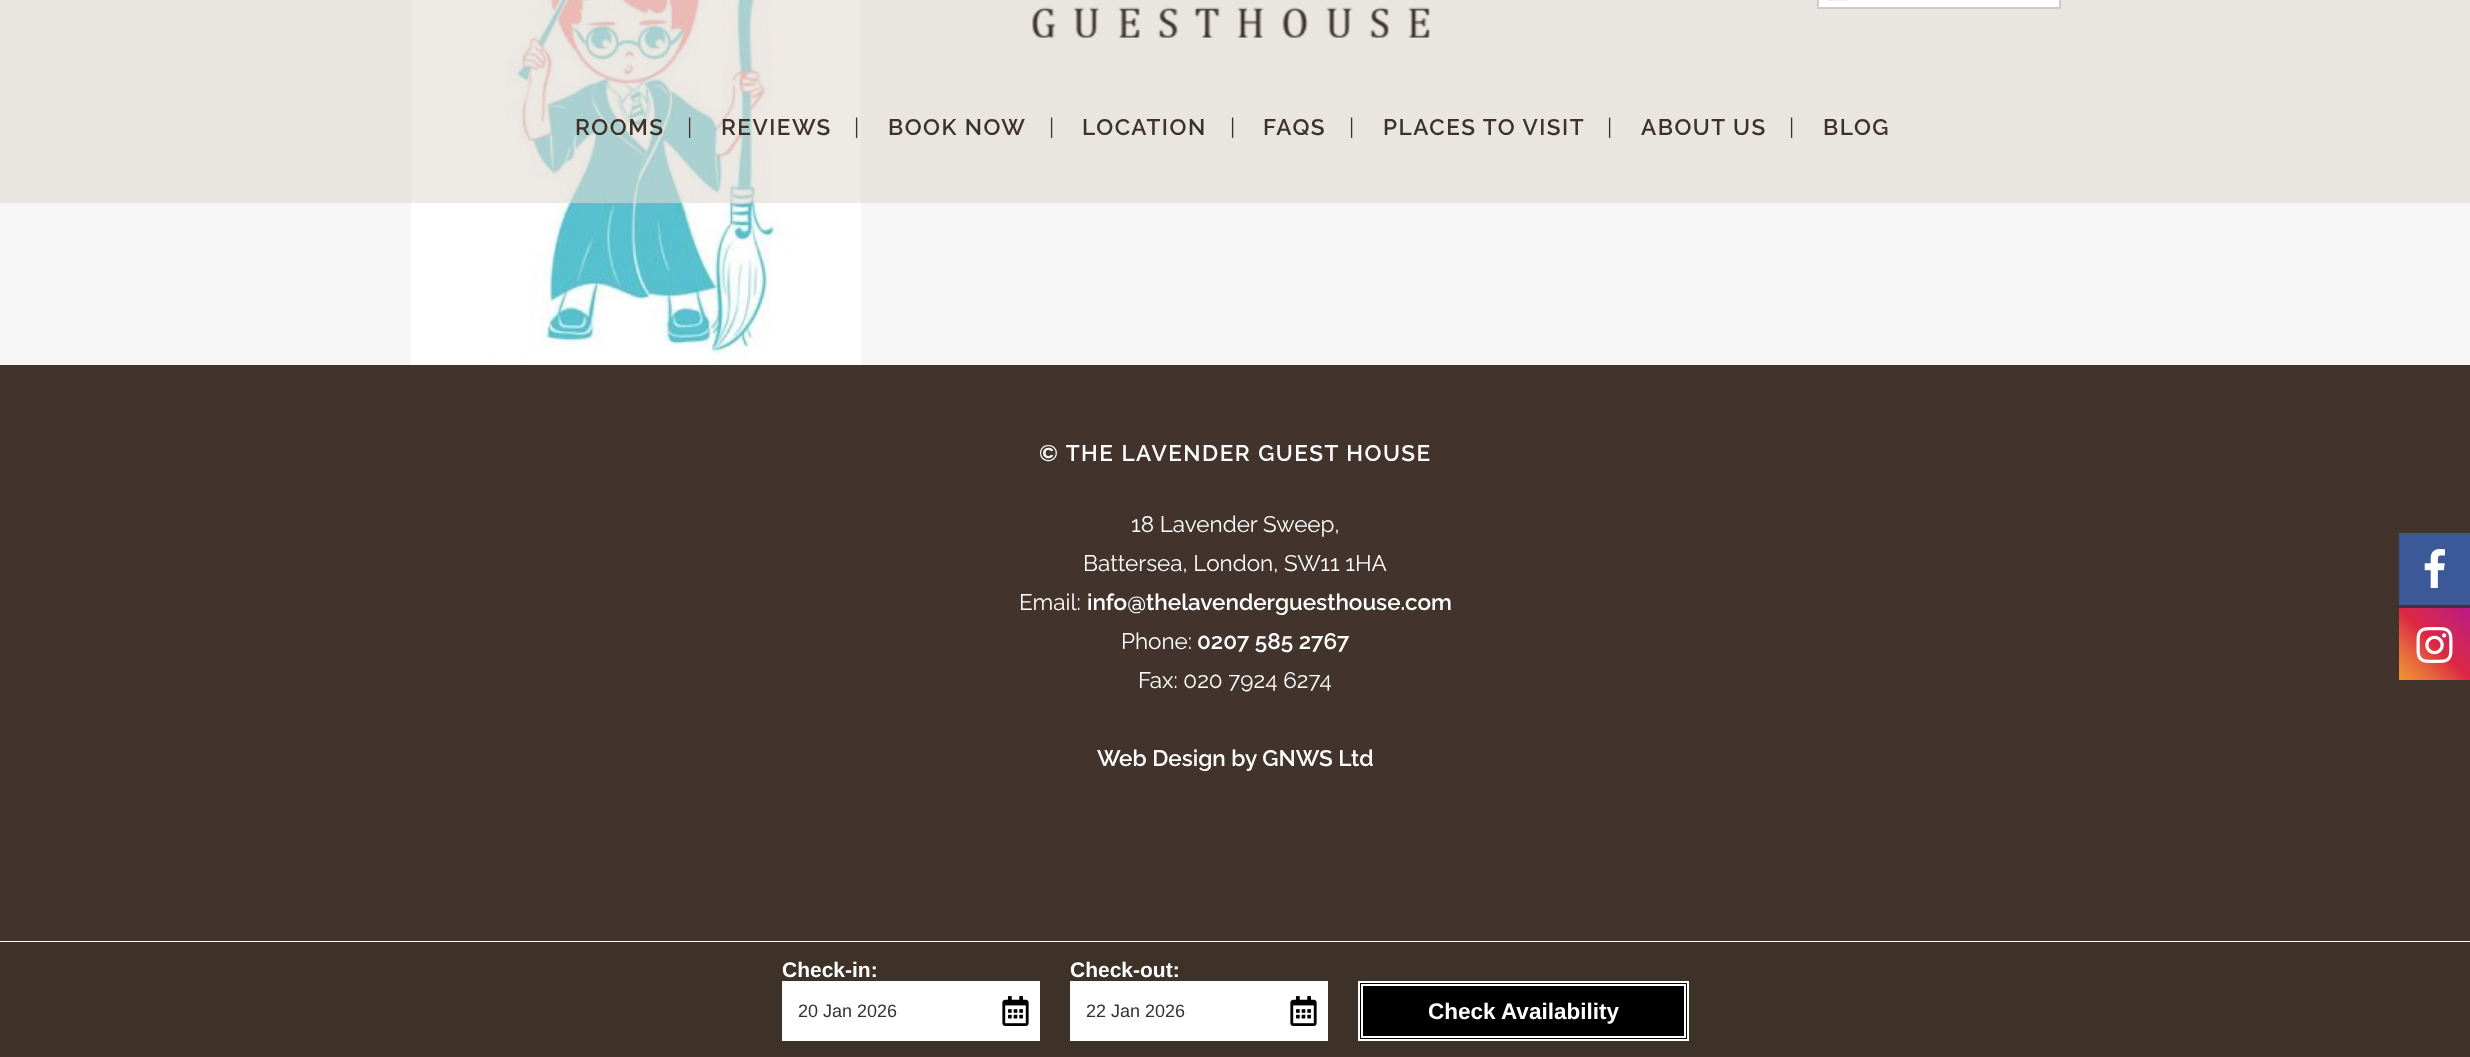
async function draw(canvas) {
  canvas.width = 2470;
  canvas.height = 1057;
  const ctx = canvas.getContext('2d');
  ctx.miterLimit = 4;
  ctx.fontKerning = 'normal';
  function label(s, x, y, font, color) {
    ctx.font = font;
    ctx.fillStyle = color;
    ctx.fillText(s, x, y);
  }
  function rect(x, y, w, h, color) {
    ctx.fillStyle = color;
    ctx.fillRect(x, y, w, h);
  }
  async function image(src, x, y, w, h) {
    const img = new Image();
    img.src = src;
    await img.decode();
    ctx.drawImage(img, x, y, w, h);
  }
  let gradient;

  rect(0, 0, 2470, 1057, '#f6f6f6');
  await image('assets/img1.png', 411, 0, 450, 365);
  rect(0, 0, 2470, 203, '#e1dad299');
  ctx.fillStyle = '#fff';
  ctx.beginPath();
  ctx.rect(1818, -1, 242, 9);
  ctx.fill();
  ctx.strokeStyle = '#ccc';
  ctx.lineWidth = 2;
  ctx.stroke();
  await image('assets/img2.png', 1827, 0, 21, 1);
  await image('assets/img3.png', 1032, 7, 399, 31);
  ctx.letterSpacing = '1.5px';
  label('ROOMS', 575, 135, '600 22.5px Raleway', '#3e3128');
  ctx.letterSpacing = '0px';
  label('|', 687, 135, '22.5px Raleway', '#3e3128');
  ctx.letterSpacing = '1.5px';
  label('REVIEWS', 721, 135, '600 22.5px Raleway', '#3e3128');
  ctx.letterSpacing = '0px';
  label('|', 854, 135, '22.5px Raleway', '#3e3128');
  ctx.letterSpacing = '1.5px';
  label('BOOK NOW', 888, 135, '600 22.5px Raleway', '#3e3128');
  ctx.letterSpacing = '0px';
  label('|', 1049, 135, '22.5px Raleway', '#3e3128');
  ctx.letterSpacing = '1.5px';
  label('LOCATION', 1082, 135, '600 22.5px Raleway', '#3e3128');
  ctx.letterSpacing = '0px';
  label('|', 1230, 135, '22.5px Raleway', '#3e3128');
  ctx.letterSpacing = '1.5px';
  label('FAQS', 1263, 135, '600 22.5px Raleway', '#3e3128');
  ctx.letterSpacing = '0px';
  label('|', 1349, 135, '22.5px Raleway', '#3e3128');
  ctx.letterSpacing = '1.5px';
  label('PLACES TO VISIT', 1383, 135, '600 22.5px Raleway', '#3e3128');
  ctx.letterSpacing = '0px';
  label('|', 1607, 135, '22.5px Raleway', '#3e3128');
  ctx.letterSpacing = '1.5px';
  label('ABOUT US', 1641, 135, '600 22.5px Raleway', '#3e3128');
  ctx.letterSpacing = '0px';
  label('|', 1789, 135, '22.5px Raleway', '#3e3128');
  ctx.letterSpacing = '1.5px';
  label('BLOG', 1823, 135, '600 22.5px Raleway', '#3e3128');
  rect(0, 365, 2470, 692, '#42342c');
  label('© THE LAVENDER GUEST HOUSE', 1039, 461, '600 22.5px Raleway', '#fff');
  ctx.letterSpacing = '0px';
  label('18 Lavender Sweep,', 1131, 532, '22.5px Raleway', '#fff');
  label('Battersea, London, SW11 1HA', 1083, 571, '22.5px Raleway', '#fff');
  label('Email:', 1019, 610, '22.5px Raleway', '#fff');
  label('info@thelavenderguesthouse.com', 1087, 610, '600 22.5px Raleway', '#fff');
  label('Phone:', 1121, 649, '22.5px Raleway', '#fff');
  label('0207 585 2767', 1197, 649, '600 22.5px Raleway', '#fff');
  label('Fax: 020 7924 6274', 1138, 688, '22.5px Raleway', '#fff');
  label('Web Design by GNWS Ltd', 1097, 766, '600 22.5px Raleway', '#fff');
  rect(0, 941, 2470, 1, '#fff');
  rect(0, 942, 2470, 114, '#3e3128');
  label('Check-in:', 782, 977, 'bold 21px Liberation Sans', '#fff');
  rect(782, 981, 258, 60, '#fff');
  await image('assets/img4.png', 1002, 996, 27, 30);
  label('20 Jan 2026', 798, 1017, '18px Liberation Sans', '#333');
  label('Check-out:', 1070, 977, 'bold 21px Liberation Sans', '#fff');
  rect(1070, 981, 258, 60, '#fff');
  await image('assets/img4.png', 1290, 996, 27, 30);
  label('22 Jan 2026', 1086, 1017, '18px Liberation Sans', '#333');
  ctx.fillStyle = '#000';
  ctx.beginPath();
  ctx.rect(1359, 982, 329, 58);
  ctx.fill();
  ctx.strokeStyle = '#fff';
  ctx.stroke();
  ctx.strokeRect(1362, 985, 323, 52);
  label('Check Availability', 1428, 1019, 'bold 22.5px Liberation Sans', '#fff');
  rect(2399, 533, 71, 72, '#3b5998');
  await image('assets/img5.png', 2424, 549, 21, 39);
  gradient = ctx.createLinearGradient(2399, 680, 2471, 608);
  gradient.addColorStop(0, '#f09433');
  gradient.addColorStop(0.25, '#e6683c');
  gradient.addColorStop(0.5, '#dc2743');
  gradient.addColorStop(0.75, '#cc2366');
  gradient.addColorStop(1, '#bc1888');
  ctx.fillStyle = gradient;
  ctx.fillRect(2399, 608, 71, 72);
  await image('assets/img6.png', 2416, 627, 37, 36);
}

draw(document.querySelector('canvas'));
